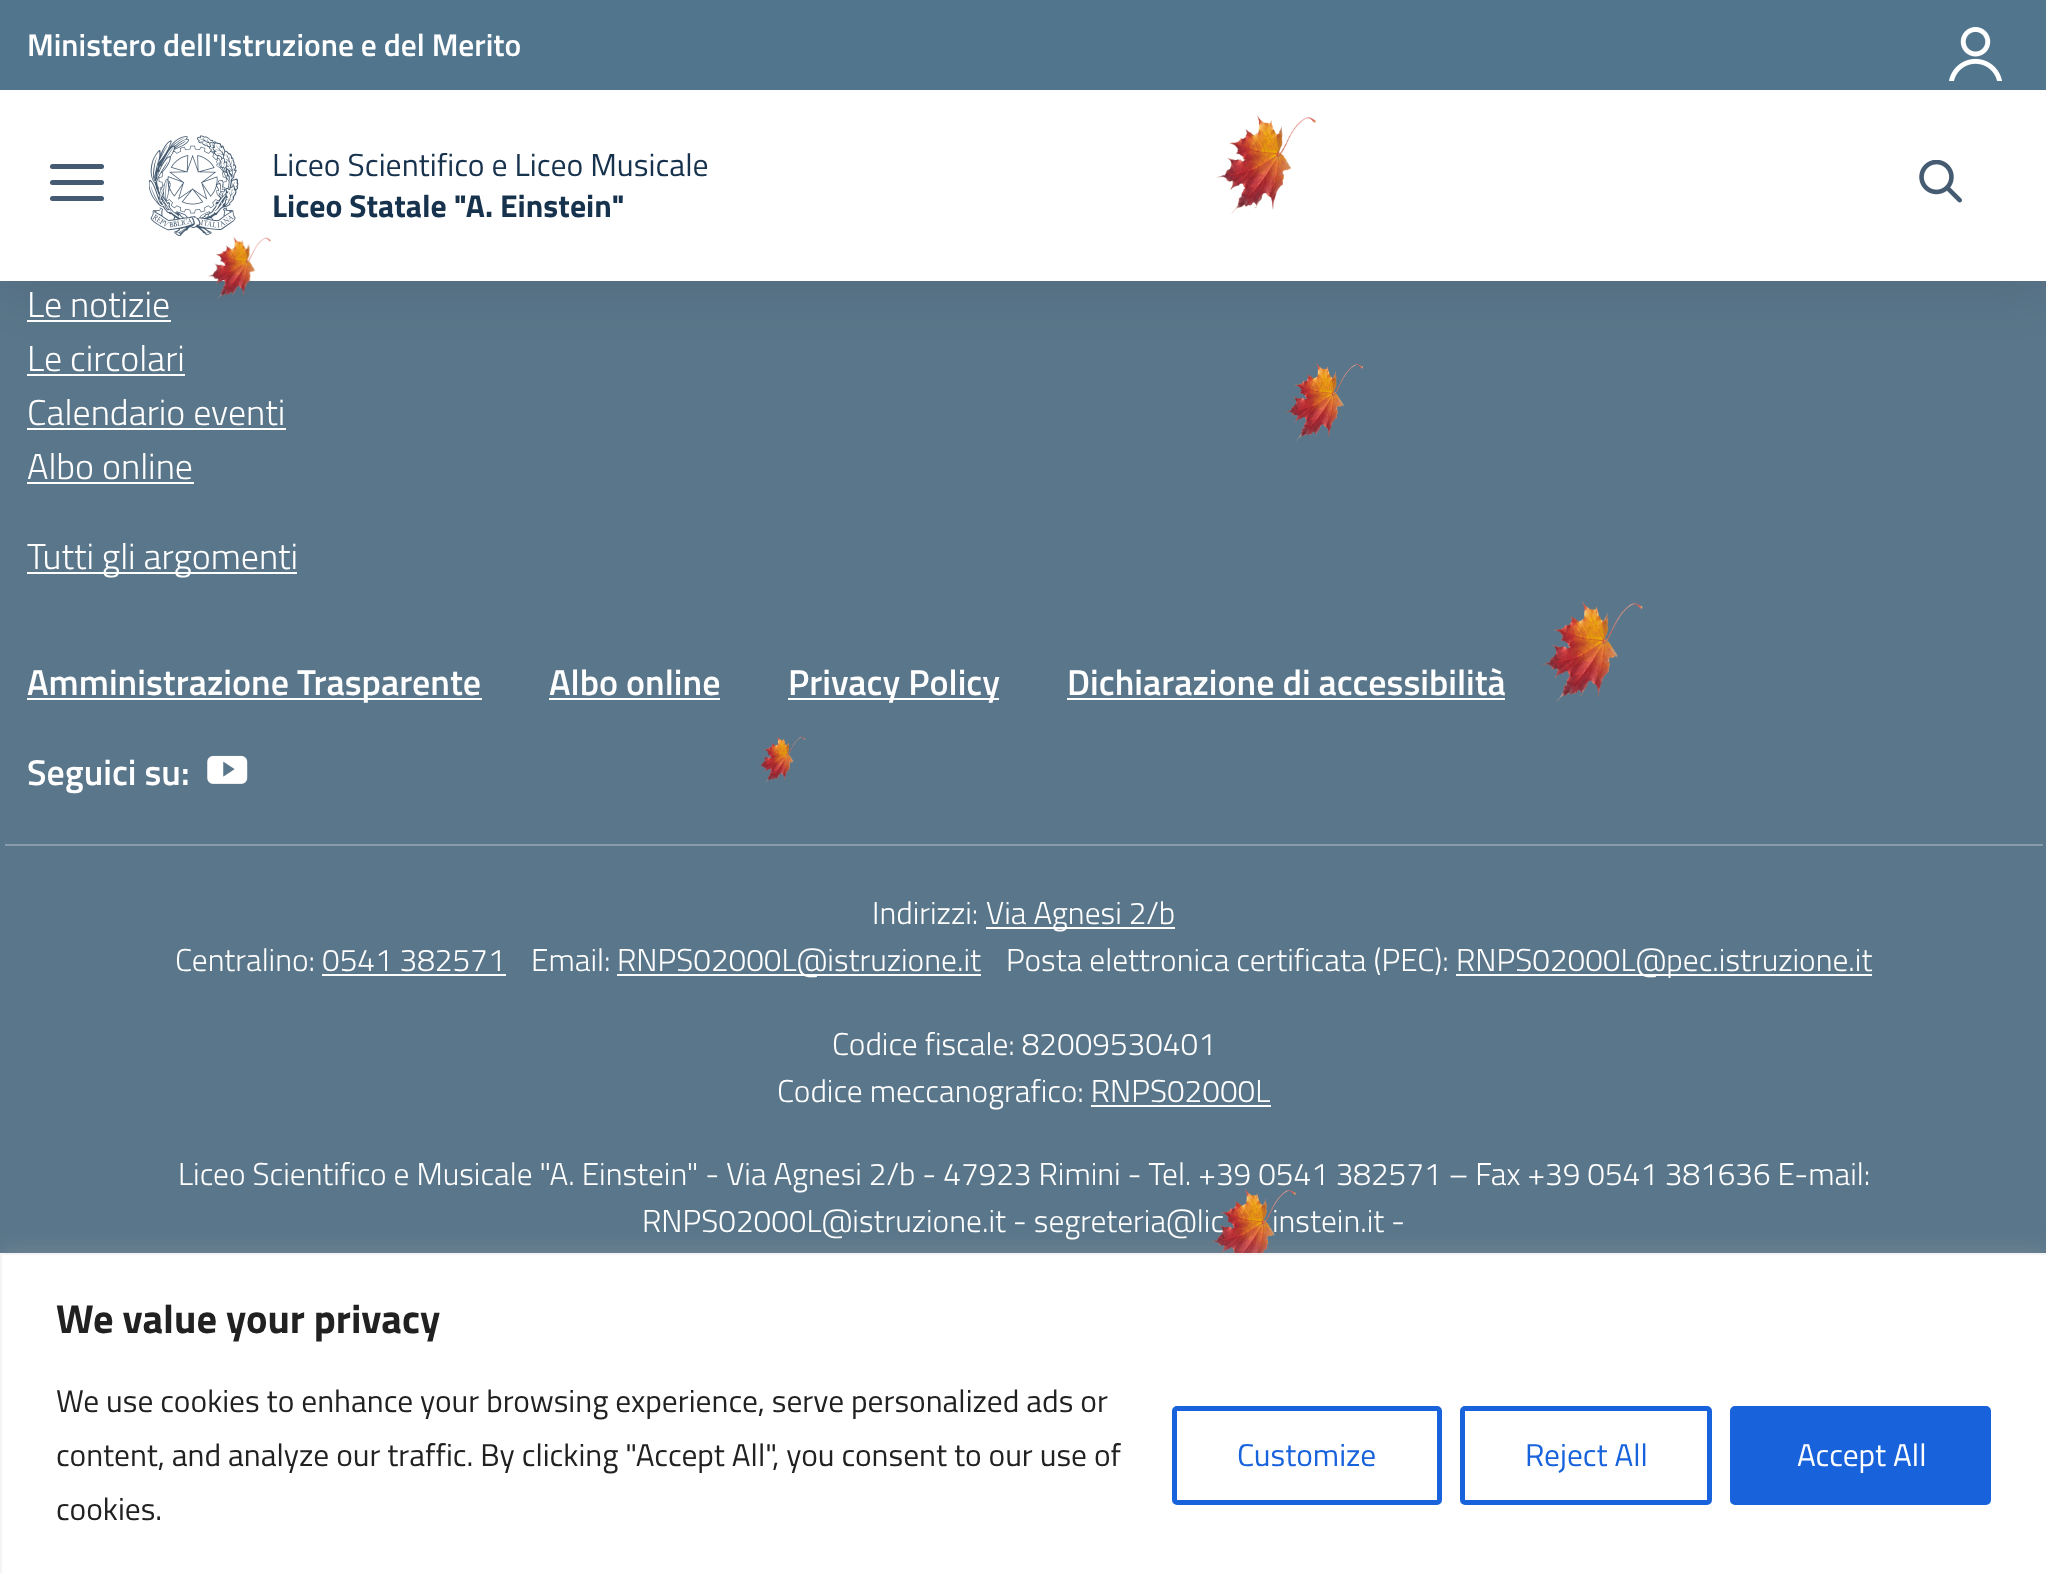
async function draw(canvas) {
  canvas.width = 2046;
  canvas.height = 1573;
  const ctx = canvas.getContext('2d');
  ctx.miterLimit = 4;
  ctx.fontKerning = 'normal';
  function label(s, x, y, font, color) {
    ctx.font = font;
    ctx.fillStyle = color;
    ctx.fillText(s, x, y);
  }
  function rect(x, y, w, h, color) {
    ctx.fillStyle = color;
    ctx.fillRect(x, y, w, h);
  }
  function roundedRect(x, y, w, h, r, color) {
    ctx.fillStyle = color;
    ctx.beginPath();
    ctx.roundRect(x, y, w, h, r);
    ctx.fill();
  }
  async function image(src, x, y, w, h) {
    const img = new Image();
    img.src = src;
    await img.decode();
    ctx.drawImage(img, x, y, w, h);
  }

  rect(0, 0, 2046, 1573, '#5a768a');
  rect(27, 320, 144, 2, '#fff');
  ctx.fillStyle = '#0000001a';
  ctx.filter = 'blur(28px)';
  ctx.beginPath();
  ctx.rect(0, 5, 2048, 281);
  ctx.fill();
  ctx.filter = 'none';
  rect(0, 90, 2046, 191, '#fff');
  rect(0, 0, 2046, 90, '#51758d');
  label('Ministero dell\'Istruzione e del Merito', 27, 56, '600 31.5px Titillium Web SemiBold', '#fff');
  await image('assets/img1.png', 1949, 27, 53, 54);
  roundedRect(50, 180, 54, 5, 2.5, '#455b71');
  roundedRect(50, 164, 54, 5, 2.5, '#455b71');
  roundedRect(50, 196, 54, 5, 2.5, '#455b71');
  await image('assets/img2.png', 149, 135, 90, 101);
  label('Liceo Scientifico e Liceo Musicale', 272, 176, '31.75px Titillium Web', '#17324d');
  label('Liceo Statale "A. Einstein"', 272, 217, 'bold 31.75px Titillium Web', '#17324d');
  await image('assets/img3.png', 1919, 160, 43, 43);
  label('Le notizie', 27, 317, '300 36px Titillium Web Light', '#fff');
  label('Le circolari', 27, 371, '300 36px Titillium Web Light', '#fff');
  rect(27, 374, 158, 2, '#fff');
  label('Calendario eventi', 27, 425, '300 36px Titillium Web Light', '#fff');
  rect(27, 428, 259, 2, '#fff');
  label('Albo online', 27, 479, '300 36px Titillium Web Light', '#fff');
  rect(27, 482, 167, 2, '#fff');
  rect(27, 572, 270, 2, '#fff');
  label('Tutti gli argomenti', 27, 569, '300 36px Titillium Web Light', '#fff');
  rect(27, 698, 455, 2, '#fff');
  label('Amministrazione Trasparente', 27, 695, '600 36px Titillium Web SemiBold', '#fff');
  label('Albo online', 549, 695, '600 36px Titillium Web SemiBold', '#fff');
  rect(549, 698, 171, 2, '#fff');
  rect(788, 698, 211, 2, '#fff');
  label('Privacy Policy', 788, 695, '600 36px Titillium Web SemiBold', '#fff');
  label('Dichiarazione di accessibilità', 1067, 695, '600 36px Titillium Web SemiBold', '#fff');
  rect(1067, 698, 438, 2, '#fff');
  label('Seguici su:', 27, 785, '600 36px Titillium Web SemiBold', '#fff');
  await image('assets/img4.png', 207, 755, 41, 29);
  rect(5, 844, 2038, 2, '#879baa');
  label('Indirizzi:', 872, 924, '300 31.5px Titillium Web Light', '#fff');
  rect(986, 927, 189, 2, '#fff');
  label('Via Agnesi 2/b', 986, 924, '300 31.5px Titillium Web Light', '#fff');
  label('Centralino: 0541 382571', 175, 971, '300 31.5px Titillium Web Light', '#fff');
  rect(322, 974, 184, 2, '#fff');
  label('Email:', 531, 971, '300 31.5px Titillium Web Light', '#fff');
  rect(617, 974, 364, 2, '#fff');
  label('RNPS02000L@istruzione.it', 617, 971, '300 31.5px Titillium Web Light', '#fff');
  label('Posta elettronica certificata (PEC):', 1006, 971, '300 31.5px Titillium Web Light', '#fff');
  rect(1456, 974, 416, 2, '#fff');
  label('RNPS02000L@pec.istruzione.it', 1456, 971, '300 31.5px Titillium Web Light', '#fff');
  label('Codice fiscale: 82009530401', 832, 1055, '300 31.5px Titillium Web Light', '#fff');
  label('Codice meccanografico: RNPS02000L', 777, 1102, '300 31.5px Titillium Web Light', '#fff');
  rect(1091, 1105, 180, 2, '#fff');
  label('Liceo Scientifico e Musicale "A. Einstein" - Via Agnesi 2/b - 47923 Rimini - Tel. +39 0541 382571 – Fax +39 0541 381636 E-mail:', 178, 1185, '300 31.5px Titillium Web Light', '#fff');
  label('RNPS02000L@istruzione.it - segreteria@lic', 642, 1232, '300 31.5px Titillium Web Light', '#fff');
  label('instein.it -', 1272, 1232, '300 31.5px Titillium Web Light', '#fff');
  await image('assets/img5.png', 1216, 115, 100, 99);
  await image('assets/img6.png', 207, 236, 65, 64);
  await image('assets/img7.png', 1284, 362, 79, 79);
  await image('assets/img8.png', 1541, 601, 102, 102);
  await image('assets/img9.png', 758, 736, 48, 47);
  await image('assets/img10.png', 1210, 1188, 86, 65);
  ctx.fillStyle = '#acabab4d';
  ctx.filter = 'blur(11px)';
  ctx.beginPath();
  ctx.rect(0, 1251, 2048, 322);
  ctx.fill();
  ctx.filter = 'none';
  ctx.fillStyle = '#fff';
  ctx.beginPath();
  ctx.rect(1, 1254, 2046, 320);
  ctx.fill();
  ctx.strokeStyle = '#f4f4f4';
  ctx.lineWidth = 2;
  ctx.stroke();
  label('We value your privacy', 56, 1333, 'bold 40.5px Titillium Web', '#212121');
  label('We use cookies to enhance your browsing experience, serve personalized ads or', 56, 1412, '31.5px Titillium Web', '#212121');
  label('content, and analyze our traffic. By clicking "Accept All", you consent to our use of', 56, 1466, '31.5px Titillium Web', '#212121');
  label('cookies.', 56, 1520, '31.5px Titillium Web', '#212121');
  ctx.beginPath();
  ctx.roundRect(1174.5, 1408.5, 265, 94, 2.5);
  ctx.strokeStyle = '#1863dc';
  ctx.lineWidth = 5;
  ctx.stroke();
  label('Customize', 1237, 1466, '31.5px Titillium Web', '#1863dc');
  ctx.beginPath();
  ctx.roundRect(1462.5, 1408.5, 247, 94, 2.5);
  ctx.stroke();
  label('Reject All', 1525, 1466, '31.5px Titillium Web', '#1863dc');
  ctx.beginPath();
  ctx.roundRect(1732.5, 1408.5, 256, 94, 2.5);
  ctx.fill();
  ctx.stroke();
  label('Accept All', 1797, 1466, '31.5px Titillium Web', '#fff');
}

draw(document.querySelector('canvas'));
